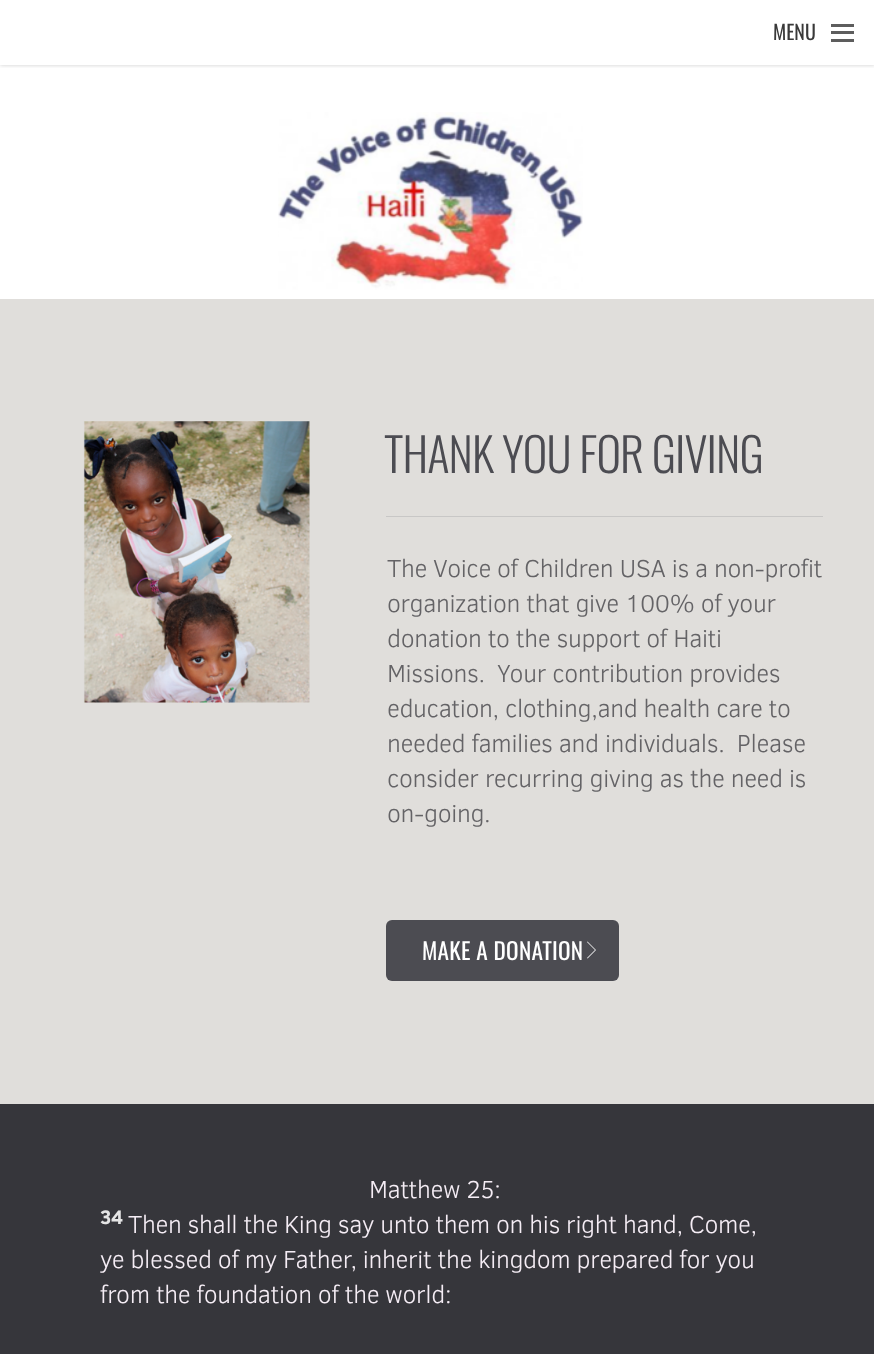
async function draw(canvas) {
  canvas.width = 874;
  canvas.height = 1354;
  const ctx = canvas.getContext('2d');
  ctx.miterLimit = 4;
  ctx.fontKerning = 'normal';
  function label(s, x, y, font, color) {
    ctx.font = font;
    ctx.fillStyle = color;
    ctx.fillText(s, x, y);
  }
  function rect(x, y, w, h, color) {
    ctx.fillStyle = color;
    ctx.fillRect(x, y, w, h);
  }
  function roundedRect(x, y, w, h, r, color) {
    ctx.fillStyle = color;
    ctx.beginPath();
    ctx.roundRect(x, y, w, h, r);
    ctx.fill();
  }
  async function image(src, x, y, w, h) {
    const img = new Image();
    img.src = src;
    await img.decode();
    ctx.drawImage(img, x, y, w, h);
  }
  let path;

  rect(0, 0, 874, 1354, '#36363b');
  rect(0, 0, 874, 299, '#fff');
  ctx.save();
  ctx.beginPath();
  ctx.rect(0, 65, 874, 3);
  ctx.clip();
  ctx.fillStyle = '#00000033';
  ctx.filter = 'blur(2px)';
  ctx.beginPath();
  ctx.rect(0, 0, 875, 65);
  ctx.fill();
  ctx.filter = 'none';
  ctx.restore();
  label('MENU', 773, 40, '20px Oswald', '#393939');
  rect(831, 24, 23, 3, '#5d5d5d');
  rect(831, 31, 23, 3, '#5d5d5d');
  rect(831, 39, 23, 3, '#5d5d5d');
  await image('assets/img1.png', 278, 112, 305, 178);
  rect(0, 299, 874, 805, '#e0dedb');
  await image('assets/img2.png', 83, 421, 227, 282);
  rect(386, 516, 437, 1, '#c8c7c6');
  ctx.letterSpacing = '-0.9px';
  label('THANK YOU FOR GIVING', 384, 473, '300 46.75px Oswald', '#4c4c52');
  ctx.letterSpacing = '-0.38px';
  label('The Voice of Children USA is a non-profit', 387, 577, '300 25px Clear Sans', '#646366');
  label('organization that give 100% of your', 387, 612, '300 25px Clear Sans', '#646366');
  label('donation to the support of Haiti', 387, 647, '300 25px Clear Sans', '#646366');
  label('Missions.  Your contribution provides', 387, 682, '300 25px Clear Sans', '#646366');
  label('education, clothing,and health care to', 387, 717, '300 25px Clear Sans', '#646366');
  label('needed families and individuals.  Please', 387, 752, '300 25px Clear Sans', '#646366');
  label('consider recurring giving as the need is', 387, 787, '300 25px Clear Sans', '#646366');
  label('on-going.', 387, 822, '300 25px Clear Sans', '#646366');
  roundedRect(386, 920, 233, 61, 6, '#4c4c52');
  ctx.letterSpacing = '0.25px';
  label('MAKE A DONATION', 422, 960, '23.25px Oswald', '#fff');
  path = new Path2D('M587.5 958.5L587 958L595 950L587 942L587.5 941.5L596 950Z');
  ctx.fill(path);
  ctx.letterSpacing = '-0.38px';
  label('Matthew 25:', 369, 1198, '300 25px Clear Sans', '#f5edf5');
  ctx.letterSpacing = '0px';
  label('34', 100, 1224, 'bold 19px Clear Sans', '#e5e5e5');
  ctx.letterSpacing = '-0.38px';
  label('Then shall the King say unto them on his right hand, Come,', 128, 1233, '300 25px Clear Sans', '#f5edf5');
  label('ye blessed of my Father, inherit the kingdom prepared for you', 100, 1268, '300 25px Clear Sans', '#f5edf5');
  label('from the foundation of the world:', 100, 1303, '300 25px Clear Sans', '#f5edf5');
}

draw(document.querySelector('canvas'));
